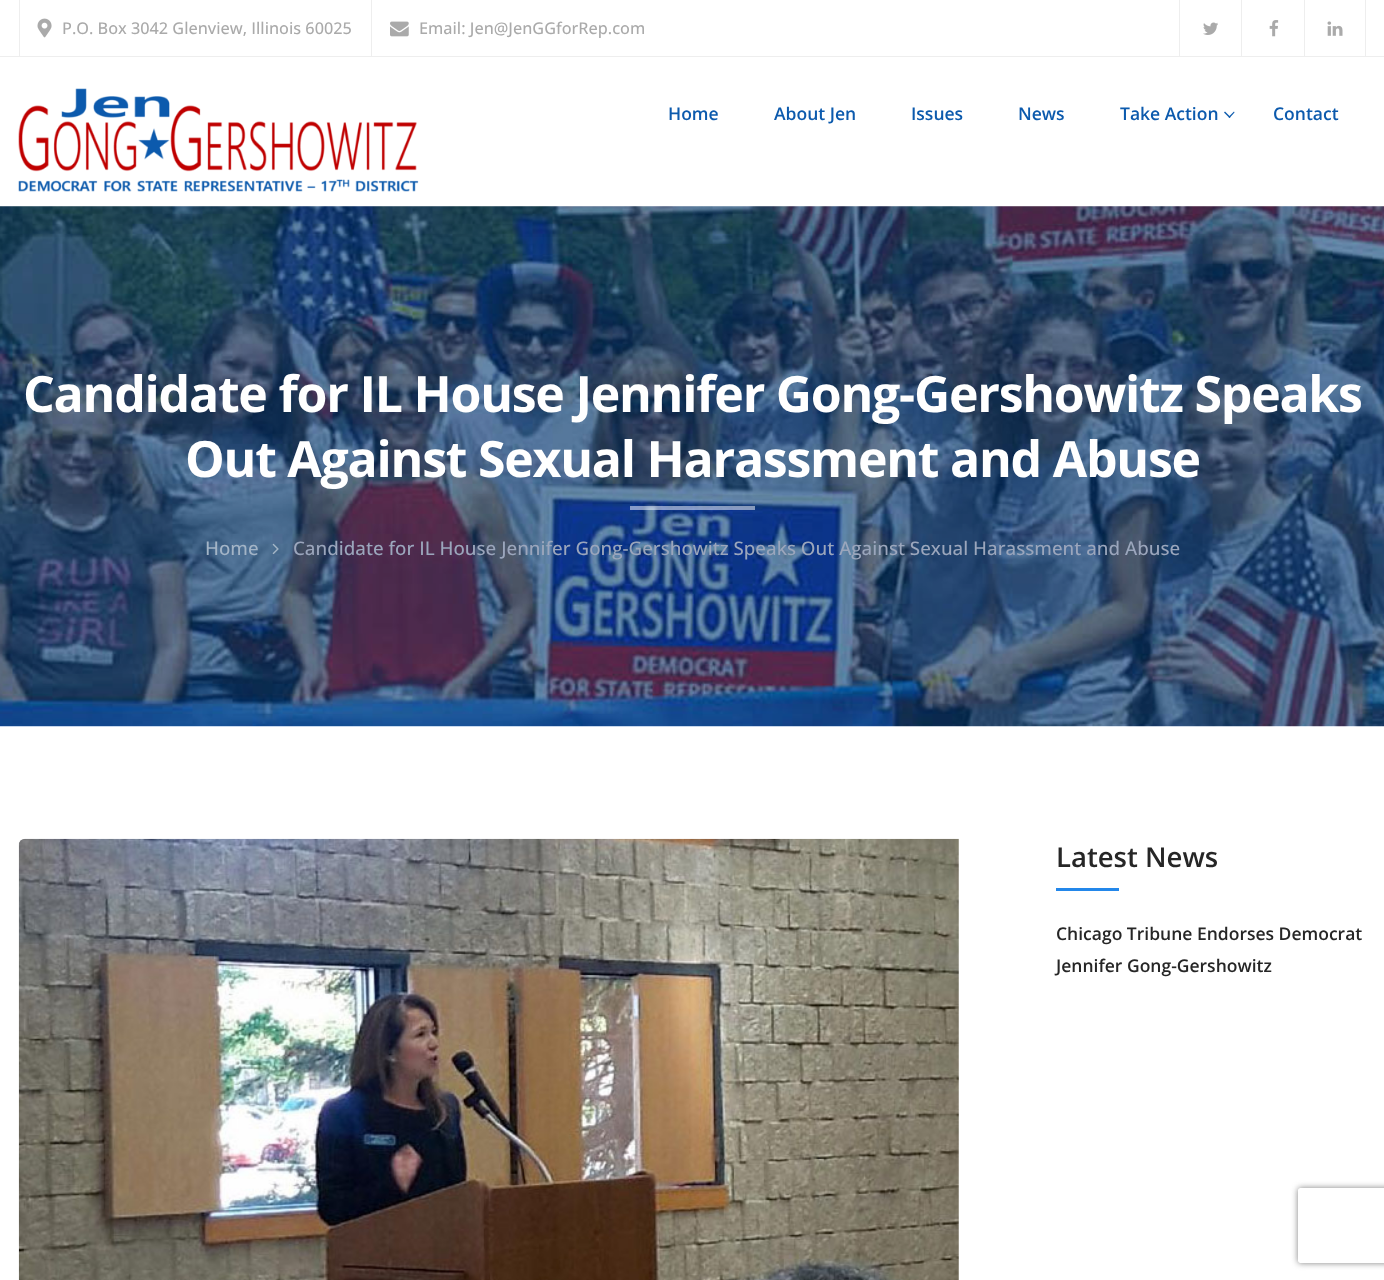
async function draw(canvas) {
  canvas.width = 1384;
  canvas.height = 1280;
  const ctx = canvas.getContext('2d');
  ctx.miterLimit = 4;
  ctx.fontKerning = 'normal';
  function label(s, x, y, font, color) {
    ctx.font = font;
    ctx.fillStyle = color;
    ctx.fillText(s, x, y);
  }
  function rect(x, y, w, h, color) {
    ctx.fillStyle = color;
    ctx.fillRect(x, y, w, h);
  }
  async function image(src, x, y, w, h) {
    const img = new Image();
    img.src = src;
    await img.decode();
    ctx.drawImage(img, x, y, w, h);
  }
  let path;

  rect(0, 0, 1384, 1280, '#fff');
  await image('assets/img7.png', 0, 206, 1384, 521);
  ctx.save();
  ctx.beginPath();
  ctx.rect(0, 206, 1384, 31);
  ctx.clip();
  ctx.fillStyle = '#00000017';
  ctx.filter = 'blur(40.5px)';
  ctx.beginPath();
  ctx.rect(0, 58, 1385, 148);
  ctx.fill();
  ctx.filter = 'none';
  ctx.restore();
  rect(0, 9, 1384, 49, '#fff');
  rect(0, 56, 1384, 1, '#eee');
  rect(19, 0, 1, 56, '#eee');
  await image('assets/img1.png', 37, 18, 15, 20);
  label('P.O. Box 3042 Glenview, Illinois 60025', 62, 34, '500 16.25px Open Sans', '#aaa');
  rect(371, 0, 1, 56, '#eee');
  await image('assets/img2.png', 390, 21, 19, 16);
  label('Email: Jen@JenGGforRep.com', 419, 34, '500 16.25px Open Sans', '#aaa');
  rect(1179, 0, 1, 56, '#eee');
  await image('assets/img3.png', 1203, 22, 15, 13);
  rect(1241, 0, 1, 56, '#eee');
  await image('assets/img4.png', 1269, 20, 10, 17);
  rect(1365, 0, 1, 56, '#eee');
  rect(1304, 0, 1, 56, '#eee');
  await image('assets/img5.png', 1327, 21, 16, 15);
  await image('assets/img6.png', 18, 88, 401, 104);
  label('Home', 668, 120, '600 17.5px Open Sans', '#0c5aad');
  label('About Jen', 774, 120, '600 17.5px Open Sans', '#0c5aad');
  label('Issues', 911, 120, '600 17.5px Open Sans', '#0c5aad');
  label('News', 1018, 120, '600 17.5px Open Sans', '#0c5aad');
  label('Take Action', 1120, 120, '600 17.5px Open Sans', '#0c5aad');
  path = new Path2D('M1234 111.5L1234.5 112.5L1229.5 118L1228.5 117Z');
  ctx.fill(path);
  path = new Path2D('M1225 111.5L1230.5 117L1229.5 118L1224 112.5Z');
  ctx.fill(path);
  label('Contact', 1273, 120, '600 17.5px Open Sans', '#0c5aad');
  ctx.letterSpacing = '-1.25px';
  label('Candidate for IL House Jennifer Gong-Gershowitz Speaks', 23, 412, 'bold 50px Open Sans', '#fff');
  label('Out Against Sexual Harassment and Abuse', 185, 477, 'bold 50px Open Sans', '#fff');
  rect(630, 506, 125, 4, '#ffffff80');
  ctx.letterSpacing = '0px';
  label('Home', 205, 555, '500 18.75px Open Sans', '#a3b4c6');
  await image('assets/img8.png', 272, 543, 7, 12);
  label('Candidate for IL House Jennifer Gong-Gershowitz Speaks Out Against Sexual Harassment and Abuse', 293, 555, '500 18.75px Open Sans', '#9ba6bc');
  await image('assets/img9.png', 18, 838, 941, 442);
  label('Latest News', 1056, 867, '600 27.5px Open Sans', '#262626');
  rect(1056, 888, 63, 3, '#2387ea');
  label('Chicago Tribune Endorses Democrat', 1056, 940, '600 17.5px Open Sans', '#262626');
  label('Jennifer Gong-Gershowitz', 1056, 972, '600 17.5px Open Sans', '#262626');
  ctx.save();
  path = new Path2D('M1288 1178H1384V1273H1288ZM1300.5 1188H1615.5C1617 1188 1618 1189 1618 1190.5V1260.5C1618 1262 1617 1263 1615.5 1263H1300.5C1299 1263 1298 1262 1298 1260.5V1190.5C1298 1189 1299 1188 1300.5 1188Z');
  ctx.clip(path, 'evenodd');
  ctx.fillStyle = '#808080';
  ctx.filter = 'blur(3px)';
  ctx.beginPath();
  ctx.roundRect(1298, 1188, 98, 75, 2.5);
  ctx.fill();
  ctx.filter = 'none';
  ctx.restore();
}

draw(document.querySelector('canvas'));
